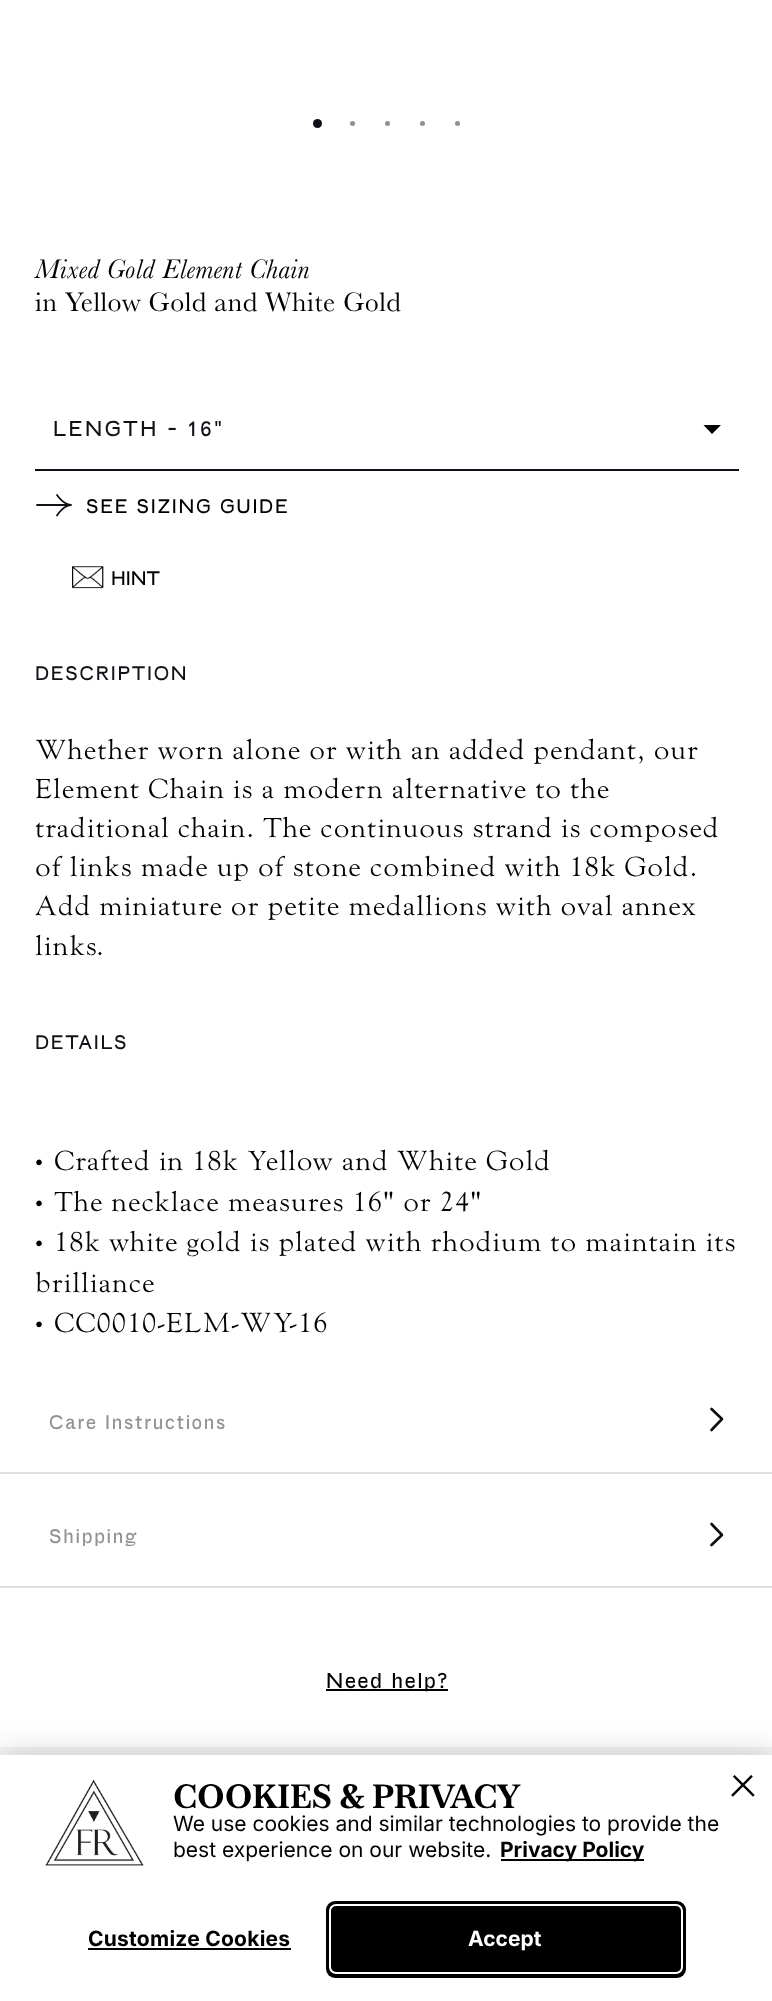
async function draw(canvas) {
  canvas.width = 772;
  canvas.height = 2001;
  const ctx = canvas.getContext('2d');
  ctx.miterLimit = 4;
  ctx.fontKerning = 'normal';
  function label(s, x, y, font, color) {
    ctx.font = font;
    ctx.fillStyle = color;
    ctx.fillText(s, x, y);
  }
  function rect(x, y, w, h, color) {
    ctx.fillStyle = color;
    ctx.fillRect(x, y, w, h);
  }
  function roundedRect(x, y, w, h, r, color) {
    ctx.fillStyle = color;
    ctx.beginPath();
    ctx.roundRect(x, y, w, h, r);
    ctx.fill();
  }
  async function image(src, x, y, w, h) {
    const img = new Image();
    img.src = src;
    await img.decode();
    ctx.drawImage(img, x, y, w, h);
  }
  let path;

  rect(0, 0, 772, 2001, '#fff');
  ctx.fillStyle = '#0e1218';
  ctx.beginPath();
  ctx.arc(317.5, 123.5, 4.5, 0, 2 * Math.PI);
  ctx.fill();
  ctx.fillStyle = '#919191';
  ctx.beginPath();
  ctx.arc(352.5, 123.5, 2.5, 0, 2 * Math.PI);
  ctx.fill();
  ctx.beginPath();
  ctx.arc(387.5, 123.5, 2.5, 0, 2 * Math.PI);
  ctx.fill();
  ctx.beginPath();
  ctx.arc(422.5, 123.5, 2.5, 0, 2 * Math.PI);
  ctx.fill();
  ctx.beginPath();
  ctx.arc(457.5, 123.5, 2.5, 0, 2 * Math.PI);
  ctx.fill();
  ctx.letterSpacing = '0.35px';
  label('Mixed Gold Element Chain', 35, 278, 'italic 28px Baskerville', '#000');
  label('in Yellow Gold and White Gold', 35, 311, '28px Baskerville', '#000');
  rect(35, 469, 704, 2, '#0e1218');
  ctx.letterSpacing = '2.6px';
  label('LENGTH - 16"', 53, 436, '21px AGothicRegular', '#0f1217');
  ctx.fillStyle = '#000';
  path = new Path2D('M703.5 425H721L712 434Z');
  ctx.fill(path);
  path = new Path2D('M37 505H71M71 505C71 505 64 505 57 515.5M71 505C71 505 64 505 57 495');
  ctx.strokeStyle = '#0f1217';
  ctx.lineWidth = 1.8;
  ctx.lineCap = 'round';
  ctx.lineJoin = 'round';
  ctx.stroke(path);
  ctx.letterSpacing = '1.75px';
  label('SEE SIZING GUIDE', 86, 513, '19.25px AGothicRegular', '#000');
  await image('assets/img1.png', 72, 566, 32, 23);
  ctx.letterSpacing = '0px';
  label('HINT', 111, 585, '19.25px AGothicRegular', '#000');
  ctx.letterSpacing = '1.75px';
  label('DESCRIPTION', 35, 680, '19.25px AGothicRegular', '#0f1217');
  ctx.letterSpacing = '0.88px';
  label('Whether worn alone or with an added pendant, our', 35, 759, '28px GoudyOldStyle', '#000');
  label('Element Chain is a modern alternative to the', 35, 798, '28px GoudyOldStyle', '#000');
  label('traditional chain. The continuous strand is composed', 35, 837, '28px GoudyOldStyle', '#000');
  label('of links made up of stone combined with 18k Gold.', 35, 876, '28px GoudyOldStyle', '#000');
  label('Add miniature or petite medallions with oval annex', 35, 915, '28px GoudyOldStyle', '#000');
  label('links.', 35, 955, '28px GoudyOldStyle', '#000');
  ctx.letterSpacing = '1.75px';
  label('DETAILS', 35, 1049, '19.25px AGothicRegular', '#0f1217');
  ctx.letterSpacing = '0.88px';
  label('•', 35, 1170, '23px GoudyOldStyle', '#000');
  label('Crafted in 18k Yellow and White Gold', 54, 1170, '28px GoudyOldStyle', '#000');
  label('•', 35, 1211, '23px GoudyOldStyle', '#000');
  label('The necklace measures 16" or 24"', 54, 1211, '28px GoudyOldStyle', '#000');
  label('•', 35, 1251, '23px GoudyOldStyle', '#000');
  label('18k white gold is plated with rhodium to maintain its', 54, 1251, '28px GoudyOldStyle', '#000');
  label('brilliance', 35, 1292, '28px GoudyOldStyle', '#000');
  label('•', 35, 1332, '23px GoudyOldStyle', '#000');
  label('CC0010-ELM-WY-16', 54, 1332, '28px GoudyOldStyle', '#000');
  rect(0, 1472, 772, 2, '#dee0e3');
  ctx.letterSpacing = '1.75px';
  label('Care Instructions', 49, 1429, '19.25px AGothicRegular', '#919191');
  path = new Path2D('M711.5 1409L722 1419L711.5 1430');
  ctx.strokeStyle = '#0a0e10';
  ctx.lineWidth = 2.6;
  ctx.stroke(path);
  rect(0, 1586, 772, 2, '#dee0e3');
  label('Shipping', 49, 1543, '19.25px AGothicRegular', '#919191');
  path = new Path2D('M711.5 1524L722 1535L711.5 1545');
  ctx.stroke(path);
  rect(326, 1689, 122, 2, '#000');
  label('Need help?', 326, 1688, '21px AGothicRegular', '#000');
  rect(0, 1747, 772, 8, '#f6f5f3');
  ctx.fillStyle = '#00000033';
  ctx.filter = 'blur(16px)';
  ctx.beginPath();
  ctx.rect(0, 1755, 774, 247);
  ctx.fill();
  ctx.filter = 'none';
  rect(0, 1755, 772, 246, '#fff');
  await image('assets/img2.png', 45, 1779, 99, 87);
  ctx.letterSpacing = '0px';
  label('COOKIES & PRIVACY', 173, 1808, 'bold 33px Baskervville', '#000');
  label('We use cookies and similar technologies to provide the', 173, 1831, '21px Inter', '#000');
  label('best experience on our website.', 173, 1857, '21px Inter', '#000');
  rect(501, 1859, 143, 2, '#000');
  label('Privacy Policy', 500, 1857, 'bold 21px Inter', '#000');
  ctx.letterSpacing = '0.25px';
  label('Customize Cookies', 88, 1946, 'bold 21px Inter', '#000');
  rect(88, 1948, 203, 2, '#000');
  roundedRect(326, 1901, 360, 77, 9, '#000');
  ctx.beginPath();
  ctx.roundRect(330, 1905, 352, 68, 6);
  ctx.strokeStyle = '#fff';
  ctx.lineWidth = 2;
  ctx.lineJoin = 'miter';
  ctx.stroke();
  ctx.letterSpacing = '0px';
  label('Accept', 468, 1946, 'bold 21px Inter', '#fff');
  await image('assets/img3.png', 731, 1775, 24, 22);
}

draw(document.querySelector('canvas'));
